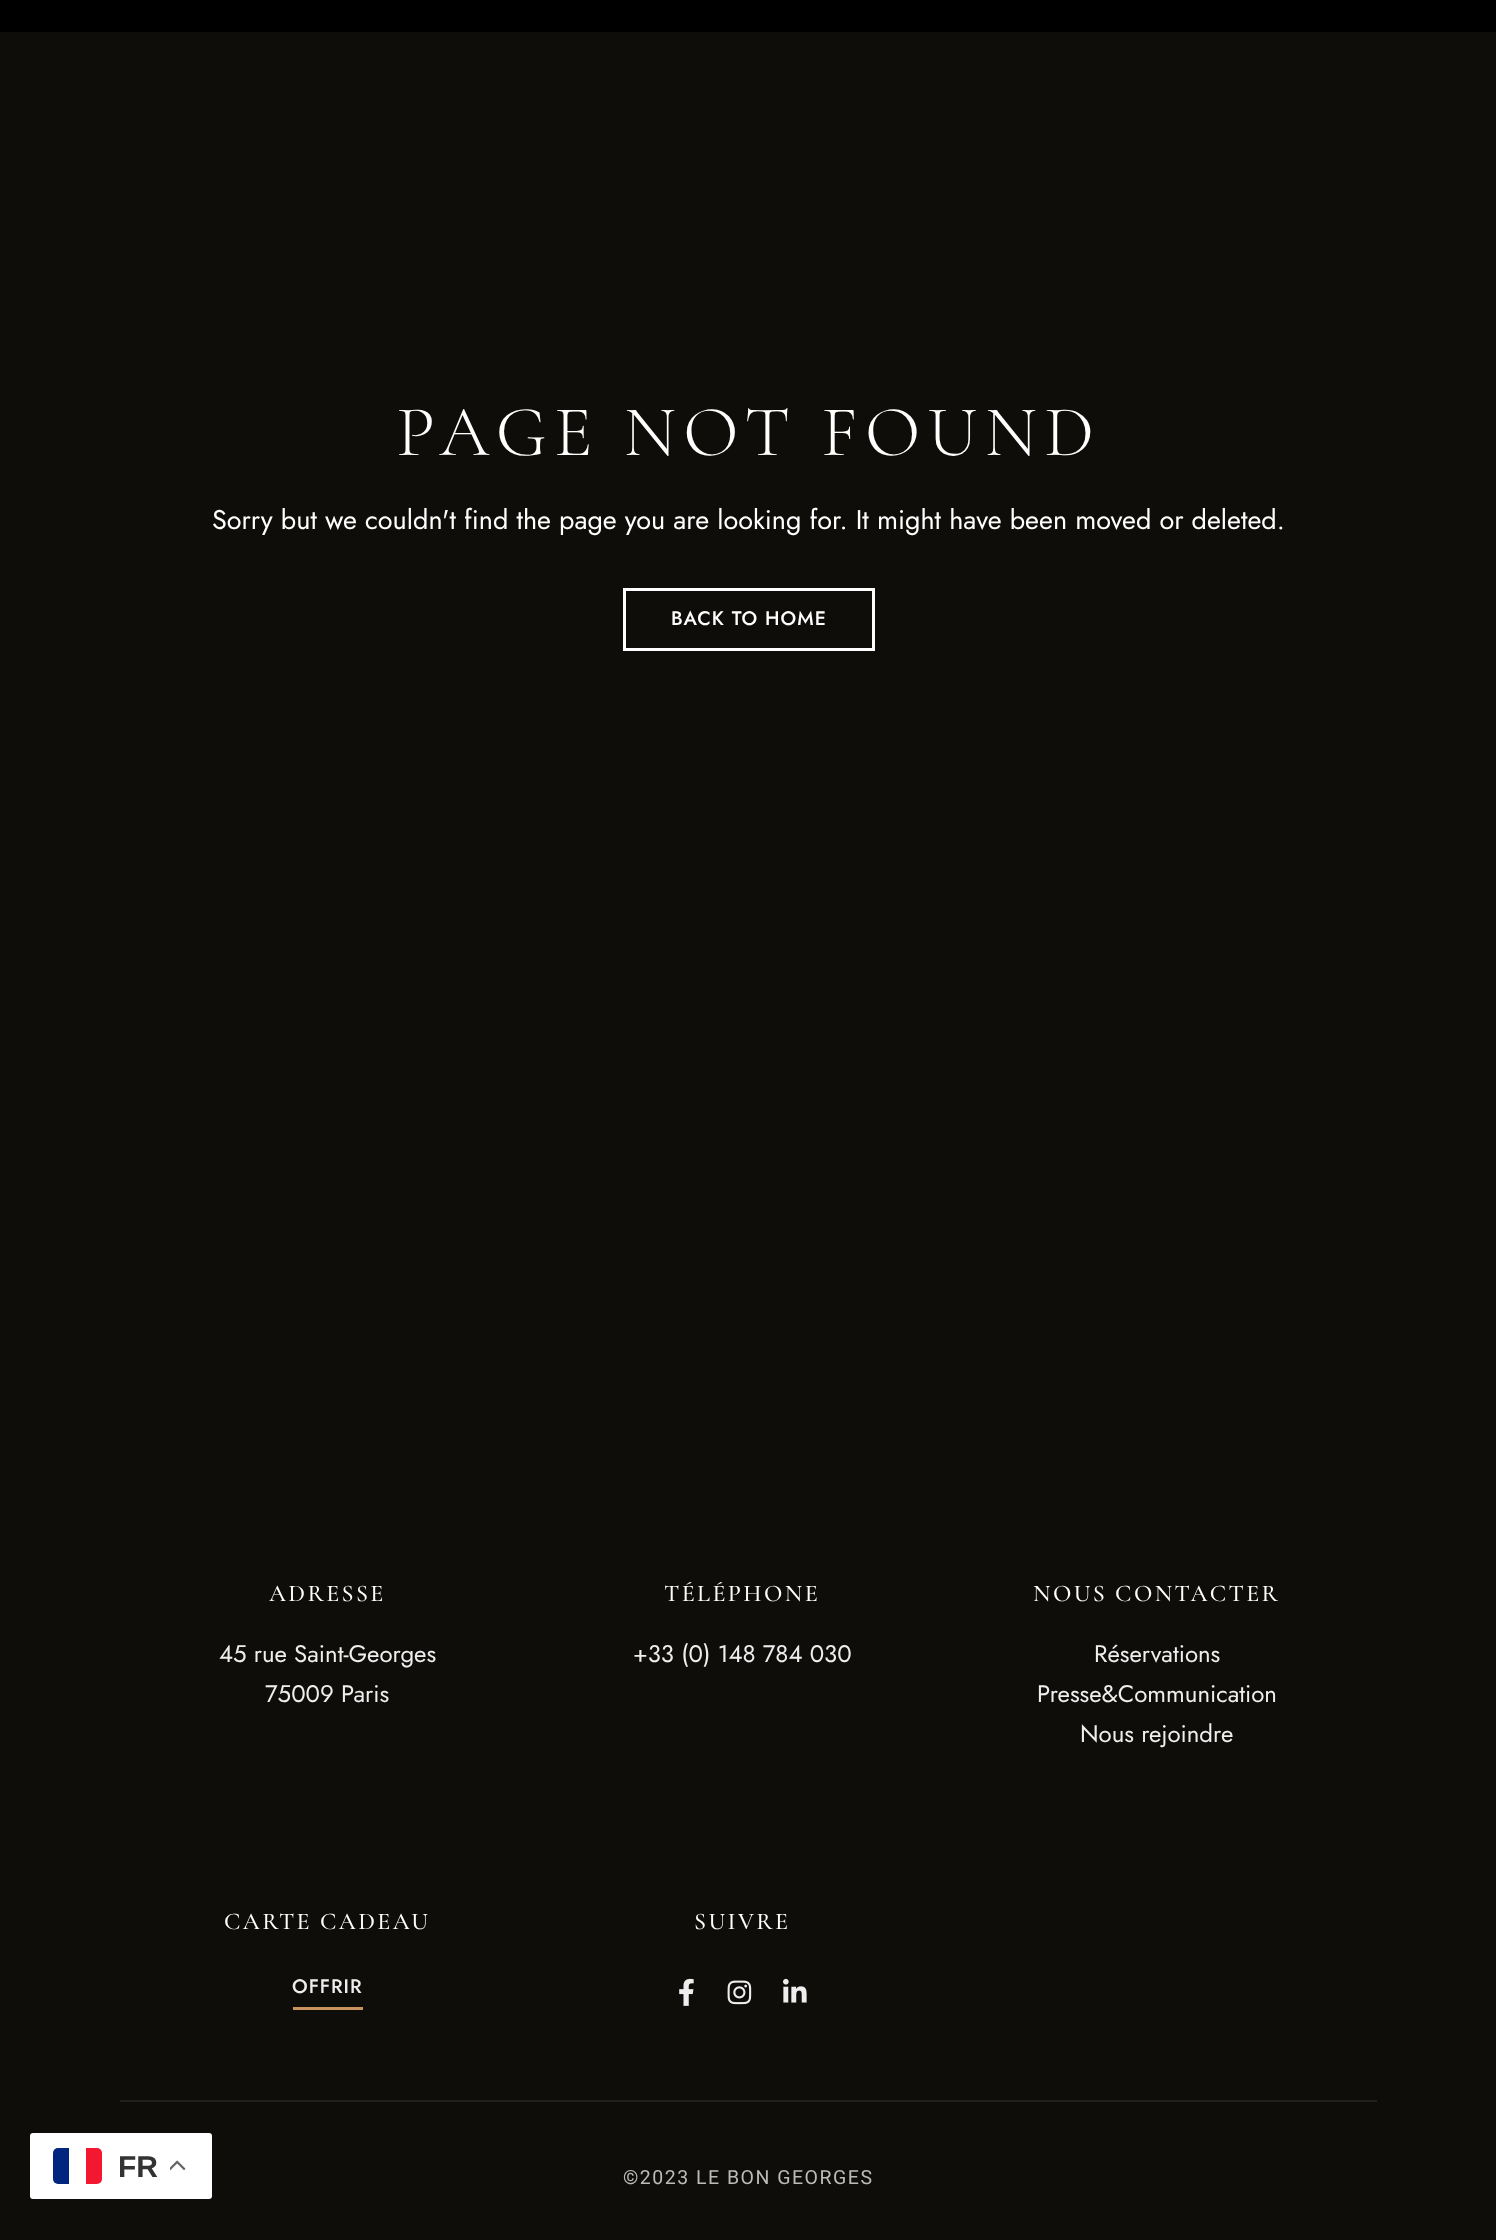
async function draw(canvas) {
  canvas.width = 1496;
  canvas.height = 2240;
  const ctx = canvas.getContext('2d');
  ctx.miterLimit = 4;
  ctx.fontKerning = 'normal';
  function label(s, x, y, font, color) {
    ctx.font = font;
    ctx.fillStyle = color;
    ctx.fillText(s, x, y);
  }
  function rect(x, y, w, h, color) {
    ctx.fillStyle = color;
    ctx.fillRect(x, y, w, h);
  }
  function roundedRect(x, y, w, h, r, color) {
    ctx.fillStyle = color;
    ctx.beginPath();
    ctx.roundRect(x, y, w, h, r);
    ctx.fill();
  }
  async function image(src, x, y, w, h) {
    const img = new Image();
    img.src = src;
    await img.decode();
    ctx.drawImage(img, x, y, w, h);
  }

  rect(0, 0, 1496, 2240, '#0e0d0a');
  roundedRect(30, 2133, 182, 66, 3, '#fff');
  ctx.fillStyle = '#00267f';
  ctx.beginPath();
  ctx.roundRect(53, 2148, 16, 36, [5, 0, 0, 5]);
  ctx.fill();
  ctx.fillStyle = '#f31830';
  ctx.beginPath();
  ctx.roundRect(86, 2148, 16, 36, [0, 5, 5, 0]);
  ctx.fill();
  label('FR', 118, 2177, 'bold 30px Liberation Sans', '#333');
  await image('assets/img1.png', 170, 2160, 16, 11);
  rect(0, 0, 1496, 32, '#000');
  ctx.letterSpacing = '7.25px';
  label('PAGE NOT FOUND', 396, 455, '300 72px Cormorant Garamond', '#fff');
  ctx.letterSpacing = '0px';
  label('Sorry but we couldn\'t find the page you are looking for. It might have been moved or deleted.', 212, 529, '27px Jost', '#fff');
  ctx.strokeStyle = '#fff';
  ctx.lineWidth = 3;
  ctx.strokeRect(624.5, 589.5, 249, 60);
  ctx.letterSpacing = '1px';
  label('BACK TO HOME', 671, 625, '500 19.5px Jost', '#fff');
  ctx.letterSpacing = '2.4px';
  label('ADRESSE', 269, 1601, '500 24px Cormorant Garamond', '#fff');
  ctx.letterSpacing = '0px';
  label('45 rue Saint-Georges', 219, 1662, '24px Jost', '#eee');
  label('75009 Paris', 265, 1702, '24px Jost', '#eee');
  ctx.letterSpacing = '2.4px';
  label('TÉLÉPHONE', 664, 1601, '500 24px Cormorant Garamond', '#fff');
  ctx.letterSpacing = '0px';
  label('+33 (0) 148 784 030', 633, 1662, '24px Jost', '#eee');
  ctx.letterSpacing = '2.4px';
  label('NOUS CONTACTER', 1033, 1601, '500 24px Cormorant Garamond', '#fff');
  ctx.letterSpacing = '0px';
  label('Réservations', 1094, 1662, '24px Jost', '#eee');
  label('Presse&Communication', 1037, 1702, '24px Jost', '#eee');
  label('Nous rejoindre', 1080, 1742, '24px Jost', '#eee');
  ctx.letterSpacing = '2.4px';
  label('CARTE CADEAU', 224, 1929, '500 24px Cormorant Garamond', '#fff');
  ctx.letterSpacing = '1px';
  label('OFFRIR', 292, 1993, '500 19.5px Jost', '#eee');
  rect(293, 2007, 70, 3, '#c8935f');
  ctx.letterSpacing = '2.4px';
  label('SUIVRE', 694, 1929, '500 24px Cormorant Garamond', '#fff');
  await image('assets/img2.png', 679, 1978, 15, 28);
  await image('assets/img3.png', 727, 1980, 25, 25);
  await image('assets/img4.png', 783, 1978, 24, 25);
  rect(120, 2100, 1257, 2, '#21201e');
  ctx.letterSpacing = '1.5px';
  label('©2023 LE BON GEORGES', 623, 2184, '19.5px Roboto', '#bcbbba');
}

draw(document.querySelector('canvas'));
